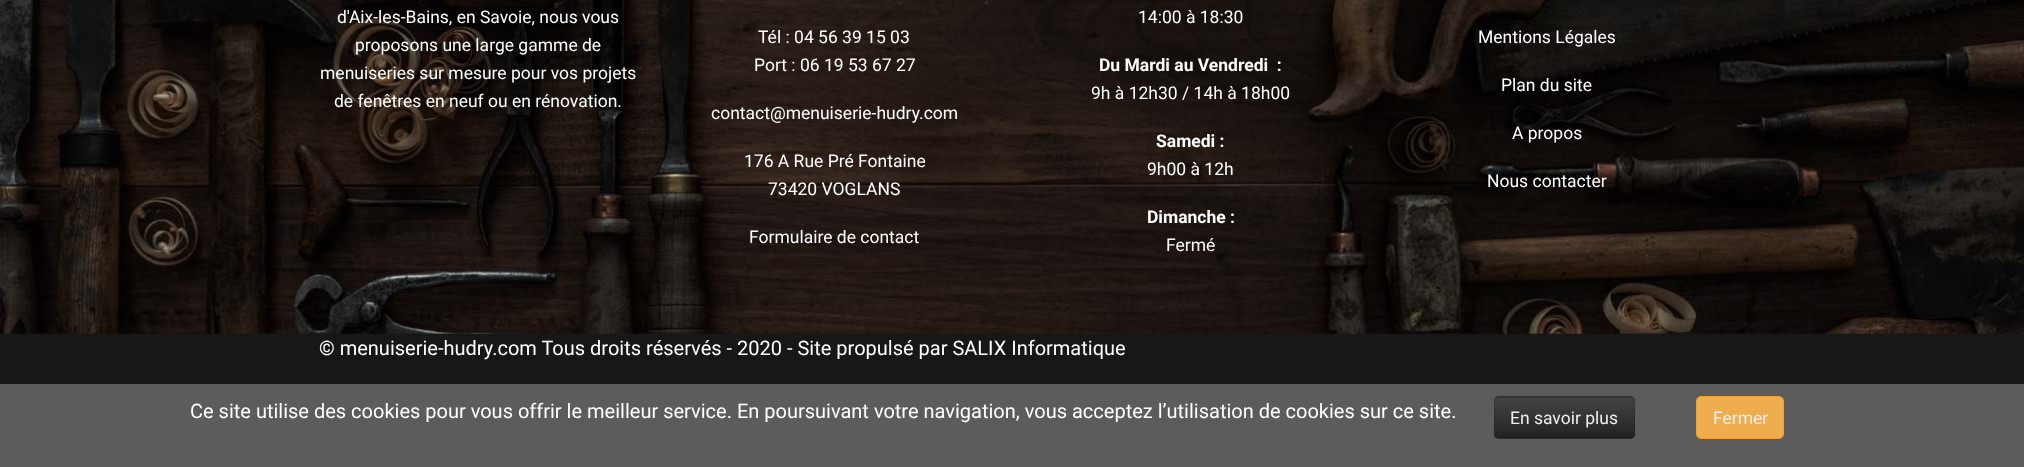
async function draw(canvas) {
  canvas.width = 2024;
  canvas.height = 467;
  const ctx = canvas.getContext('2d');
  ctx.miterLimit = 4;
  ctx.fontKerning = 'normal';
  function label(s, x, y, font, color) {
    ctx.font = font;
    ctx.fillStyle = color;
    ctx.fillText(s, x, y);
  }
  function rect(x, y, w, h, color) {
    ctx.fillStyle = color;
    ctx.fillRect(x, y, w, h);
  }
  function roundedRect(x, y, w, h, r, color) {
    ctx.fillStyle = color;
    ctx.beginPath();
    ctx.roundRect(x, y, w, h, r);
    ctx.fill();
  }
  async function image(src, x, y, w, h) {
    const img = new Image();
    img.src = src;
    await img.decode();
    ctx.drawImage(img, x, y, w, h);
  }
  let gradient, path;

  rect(0, 0, 2024, 467, '#5c5c5c');
  rect(0, 333, 2024, 51, '#171717');
  await image('assets/img1.png', 0, 0, 2024, 334);
  label('d\'Aix-les-Bains, en Savoie, nous vous', 337, 23, '17.5px Roboto', '#fff');
  label('proposons une large gamme de', 355, 51, '17.5px Roboto', '#fff');
  label('menuiseries sur mesure pour vos projets', 320, 79, '17.5px Roboto', '#fff');
  label('de fenêtres en neuf ou en rénovation.', 334, 107, '17.5px Roboto', '#fff');
  label('Tél : 04 56 39 15 03', 758, 43, '17.5px Roboto', '#fff');
  label('Port : 06 19 53 67 27', 754, 71, '17.5px Roboto', '#fff');
  label('contact@menuiserie-hudry.com', 711, 119, '17.5px Roboto', '#fff');
  label('176 A Rue Pré Fontaine', 744, 167, '17.5px Roboto', '#fff');
  label('73420 VOGLANS', 768, 195, '17.5px Roboto', '#fff');
  label('Formulaire de contact', 749, 243, '17.5px Roboto', '#fff');
  label('14:00 à 18:30', 1138, 23, '17.5px Roboto', '#fff');
  label('Du Mardi au Vendredi  :', 1099, 71, 'bold 17.5px Roboto', '#fff');
  label('9h à 12h30 / 14h à 18h00', 1091, 99, '17.5px Roboto', '#fff');
  label('Samedi :', 1156, 147, 'bold 17.5px Roboto', '#fff');
  label('9h00 à 12h', 1147, 175, '17.5px Roboto', '#fff');
  label('Dimanche :', 1147, 223, 'bold 17.5px Roboto', '#fff');
  label('Fermé', 1166, 251, '17.5px Roboto', '#fff');
  label('Mentions Légales', 1478, 43, '17.5px Roboto', '#fff');
  label('Plan du site', 1501, 91, '17.5px Roboto', '#fff');
  label('A propos', 1512, 139, '17.5px Roboto', '#fff');
  label('Nous contacter', 1487, 187, '17.5px Roboto', '#fff');
  label('© menuiserie-hudry.com Tous droits réservés - 2020 - Site propulsé par SALIX Informatique', 319, 355, '20px Roboto', '#fff');
  label('Ce site utilise des cookies pour vous offrir le meilleur service. En poursuivant votre navigation, vous acceptez l’utilisation de cookies sur ce site.', 190, 418, '20px Roboto', '#fff');
  roundedRect(1494, 396, 141, 43, 5, '#363636');
  ctx.save();
  ctx.beginPath();
  ctx.roundRect(1494, 396, 141, 43, 5);
  ctx.clip();
  gradient = ctx.createLinearGradient(1564, 398, 1564, 438);
  gradient.addColorStop(0, '#444');
  gradient.addColorStop(1, '#222');
  ctx.fillStyle = gradient;
  ctx.fillRect(1494, 398, 141, 40);
  ctx.restore();
  path = new Path2D('M1633 437L1630.5 438H1520.5H1499L1495.5 437');
  ctx.strokeStyle = '#00000040';
  ctx.lineWidth = 1.2;
  ctx.stroke(path);
  path = new Path2D('M1495.5 437C1493 434 1494.5 426 1494.5 423V406.5C1494.5 403.5 1493.5 397 1499 397H1630C1635.5 397 1634.5 403.5 1634.5 406.5V423C1634.5 426 1636 434 1633 437');
  ctx.strokeStyle = '#0000001a';
  ctx.stroke(path);
  label('En savoir plus', 1510, 424, '17.5px Roboto', '#eee');
  ctx.fillStyle = '#f0ad4e';
  ctx.beginPath();
  ctx.roundRect(1696.5, 396.5, 87, 42, 4.5);
  ctx.fill();
  ctx.strokeStyle = '#eea236';
  ctx.lineWidth = 1;
  ctx.stroke();
  label('Fermer', 1713, 424, '17.5px Roboto', '#eee');
}

draw(document.querySelector('canvas'));
